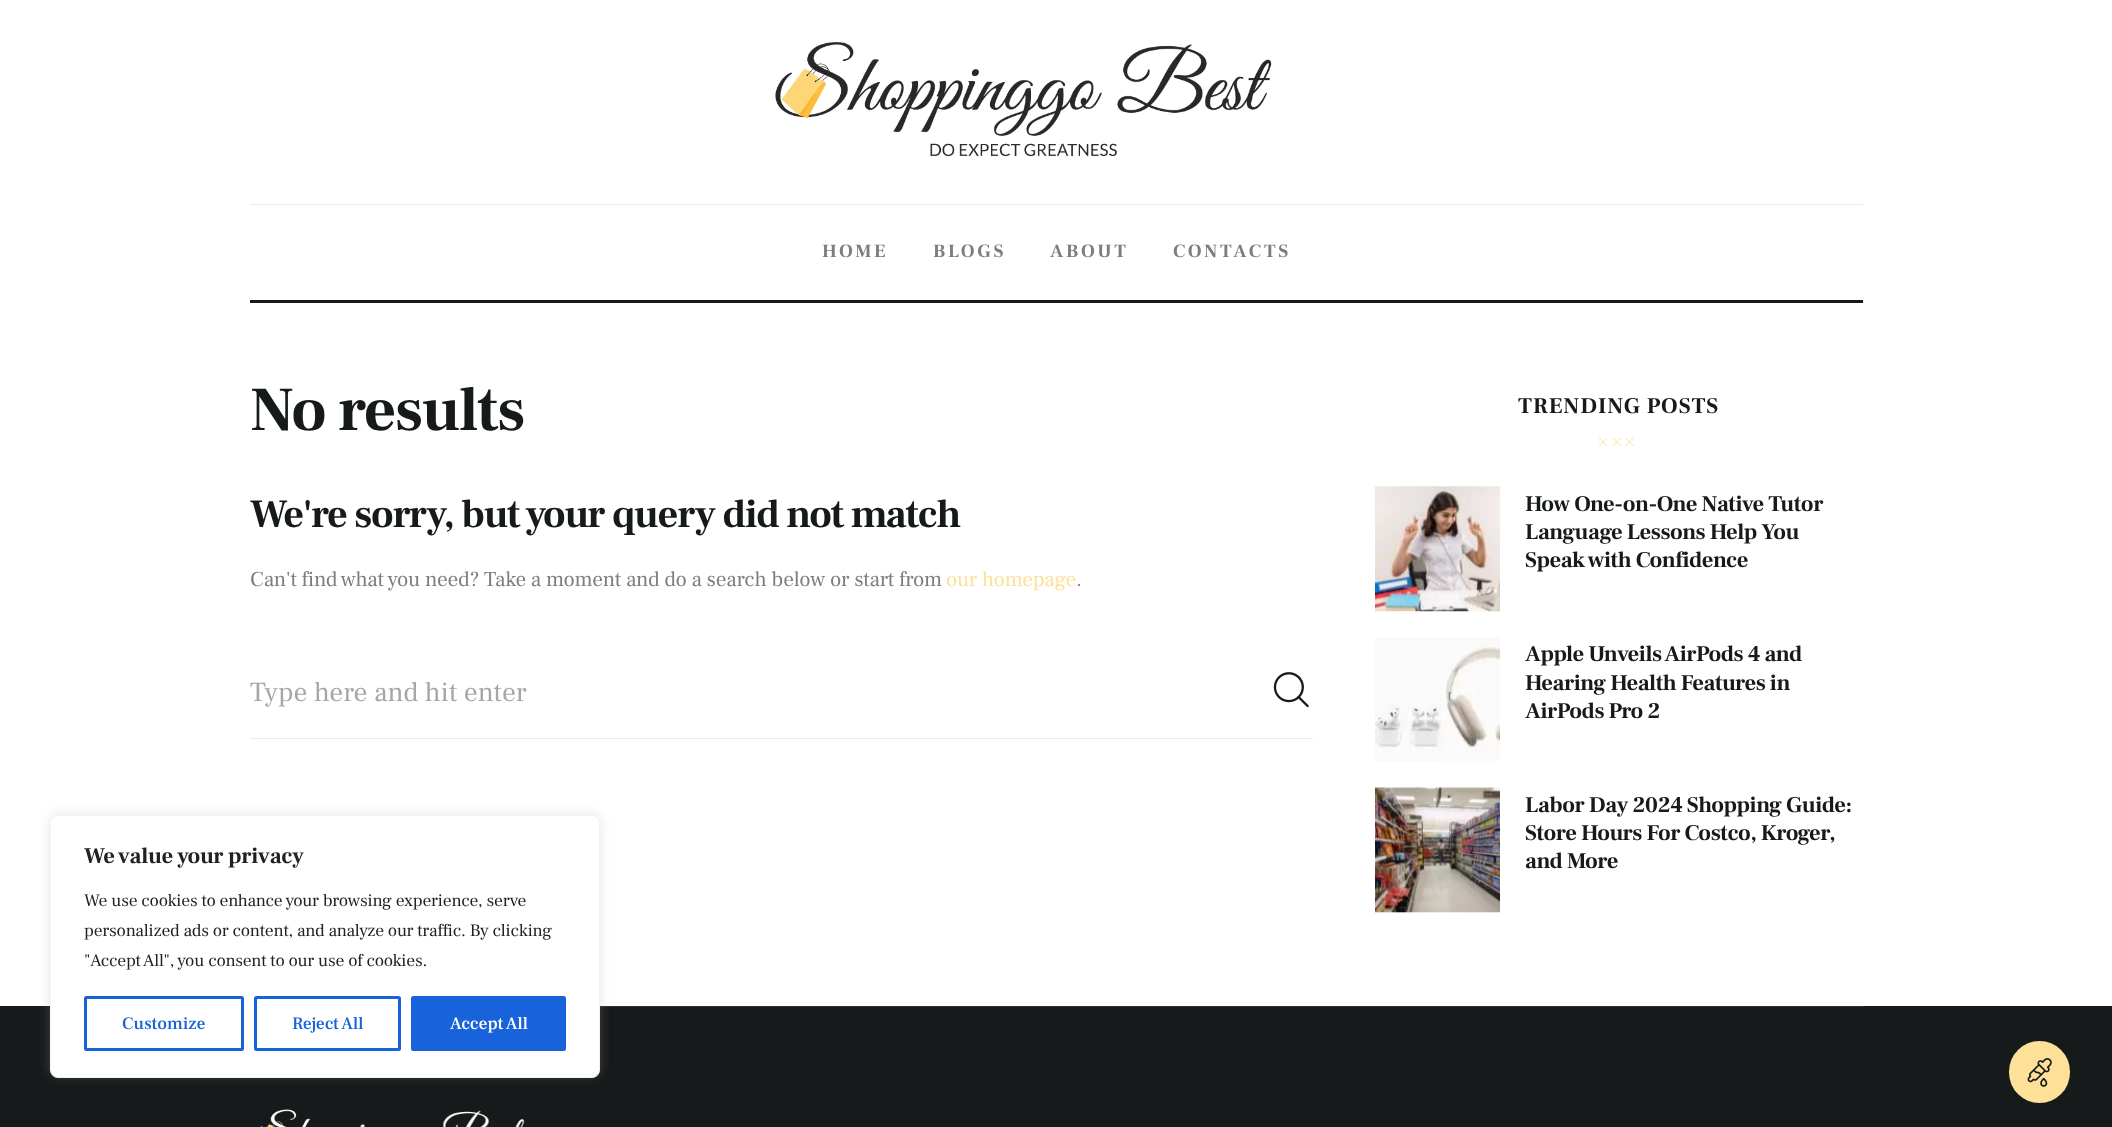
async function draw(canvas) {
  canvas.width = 2112;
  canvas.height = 1127;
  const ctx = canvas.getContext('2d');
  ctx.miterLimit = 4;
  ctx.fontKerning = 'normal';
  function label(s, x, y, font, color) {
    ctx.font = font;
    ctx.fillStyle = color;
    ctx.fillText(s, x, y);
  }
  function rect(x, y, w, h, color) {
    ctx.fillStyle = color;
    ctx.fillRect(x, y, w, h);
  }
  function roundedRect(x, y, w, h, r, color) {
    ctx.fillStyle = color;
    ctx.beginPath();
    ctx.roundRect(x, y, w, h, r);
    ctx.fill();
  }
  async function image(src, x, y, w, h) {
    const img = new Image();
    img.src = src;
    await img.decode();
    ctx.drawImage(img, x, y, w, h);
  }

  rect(0, 0, 2112, 1127, '#fff');
  await image('assets/img1.png', 775, 42, 497, 115);
  rect(250, 204, 1613, 1, '#eaeaea');
  ctx.letterSpacing = '2.75px';
  label('HOME', 822, 257, 'bold 18.75px Frank Ruhl Libre', '#7a7e83');
  label('BLOGS', 933, 257, 'bold 18.75px Frank Ruhl Libre', '#7a7e83');
  label('ABOUT', 1050, 257, 'bold 18.75px Frank Ruhl Libre', '#7a7e83');
  label('CONTACTS', 1173, 257, 'bold 18.75px Frank Ruhl Libre', '#7a7e83');
  rect(250, 300, 1613, 3, '#171a1b');
  ctx.letterSpacing = '-1.25px';
  label('No results', 250, 430, 'bold 62.5px Frank Ruhl Libre', '#171a1b');
  ctx.letterSpacing = '-1.2px';
  label('We\'re sorry, but your query did not match', 250, 527, 'bold 40px Frank Ruhl Libre', '#171a1b');
  ctx.letterSpacing = '-0.2px';
  label('Can\'t find what you need? Take a moment and do a search below or start from', 250, 586, '21.25px Frank Ruhl Libre', '#7a7e83');
  label('our homepage', 946, 586, '21.25px Frank Ruhl Libre', '#fee198');
  label('.', 1076, 586, '21.25px Frank Ruhl Libre', '#7a7e83');
  rect(250, 738, 1063, 1, '#eaeaea');
  ctx.letterSpacing = '0px';
  label('Type here and hit enter', 250, 701, '27.5px Frank Ruhl Libre', '#a5a6aa');
  await image('assets/img2.png', 1273, 672, 36, 36);
  ctx.letterSpacing = '0.9px';
  label('TRENDING POSTS', 1518, 413, 'bold 22.5px Frank Ruhl Libre', '#171a1b');
  await image('assets/img3.png', 1598, 437, 10, 10);
  await image('assets/img4.png', 1612, 437, 10, 10);
  await image('assets/img5.png', 1625, 437, 9, 10);
  await image('assets/img6.png', 1375, 486, 125, 126);
  ctx.letterSpacing = '-0.45px';
  label('How One-on-One Native Tutor', 1525, 511, 'bold 22.5px Frank Ruhl Libre', '#171a1b');
  label('Language Lessons Help You', 1525, 539, 'bold 22.5px Frank Ruhl Libre', '#171a1b');
  label('Speak with Confidence', 1525, 567, 'bold 22.5px Frank Ruhl Libre', '#171a1b');
  await image('assets/img7.png', 1375, 637, 125, 124);
  label('Apple Unveils AirPods 4 and', 1525, 661, 'bold 22.5px Frank Ruhl Libre', '#171a1b');
  label('Hearing Health Features in', 1525, 690, 'bold 22.5px Frank Ruhl Libre', '#171a1b');
  label('AirPods Pro 2', 1525, 718, 'bold 22.5px Frank Ruhl Libre', '#171a1b');
  await image('assets/img8.png', 1375, 787, 125, 126);
  label('Labor Day 2024 Shopping Guide:', 1525, 812, 'bold 22.5px Frank Ruhl Libre', '#171a1b');
  label('Store Hours For Costco, Kroger,', 1525, 840, 'bold 22.5px Frank Ruhl Libre', '#171a1b');
  label('and More', 1525, 868, 'bold 22.5px Frank Ruhl Libre', '#171a1b');
  rect(0, 1006, 2112, 121, '#171a1b');
  rect(600, 1006, 1263, 1, '#2d3036');
  await image('assets/img9.png', 260, 1109, 265, 18);
  ctx.fillStyle = '#acabab4d';
  ctx.filter = 'blur(6px)';
  ctx.beginPath();
  ctx.roundRect(50, 814, 550, 262, 8);
  ctx.fill();
  ctx.filter = 'none';
  ctx.fillStyle = '#fff';
  ctx.beginPath();
  ctx.roundRect(50.5, 815.5, 549, 262, 7.5);
  ctx.fill();
  ctx.strokeStyle = '#f4f4f4';
  ctx.stroke();
  ctx.letterSpacing = '-0.2px';
  label('We value your privacy', 84, 863, 'bold 22.5px Frank Ruhl Libre', '#212121');
  label('We use cookies to enhance your browsing experience, serve', 84, 906, '17.5px Frank Ruhl Libre', '#212121');
  label('personalized ads or content, and analyze our traffic. By clicking', 84, 936, '17.5px Frank Ruhl Libre', '#212121');
  label('"Accept All", you consent to our use of cookies.', 84, 966, '17.5px Frank Ruhl Libre', '#212121');
  ctx.beginPath();
  ctx.roundRect(85.5, 997.5, 157, 52, 1);
  ctx.strokeStyle = '#1863dc';
  ctx.lineWidth = 3;
  ctx.stroke();
  ctx.letterSpacing = '0px';
  label('Customize', 122, 1029, '500 17.5px Frank Ruhl Libre', '#1863dc');
  ctx.beginPath();
  ctx.roundRect(255.5, 997.5, 144, 52, 1);
  ctx.stroke();
  label('Reject All', 292, 1029, '500 17.5px Frank Ruhl Libre', '#1863dc');
  ctx.beginPath();
  ctx.roundRect(412.5, 997.5, 152, 52, 1);
  ctx.fill();
  ctx.stroke();
  label('Accept All', 450, 1029, '500 17.5px Frank Ruhl Libre', '#fff');
  roundedRect(2009, 1041, 61, 62, 30.5, '#fee198');
  await image('assets/img10.png', 2027, 1058, 25, 29);
}

draw(document.querySelector('canvas'));
